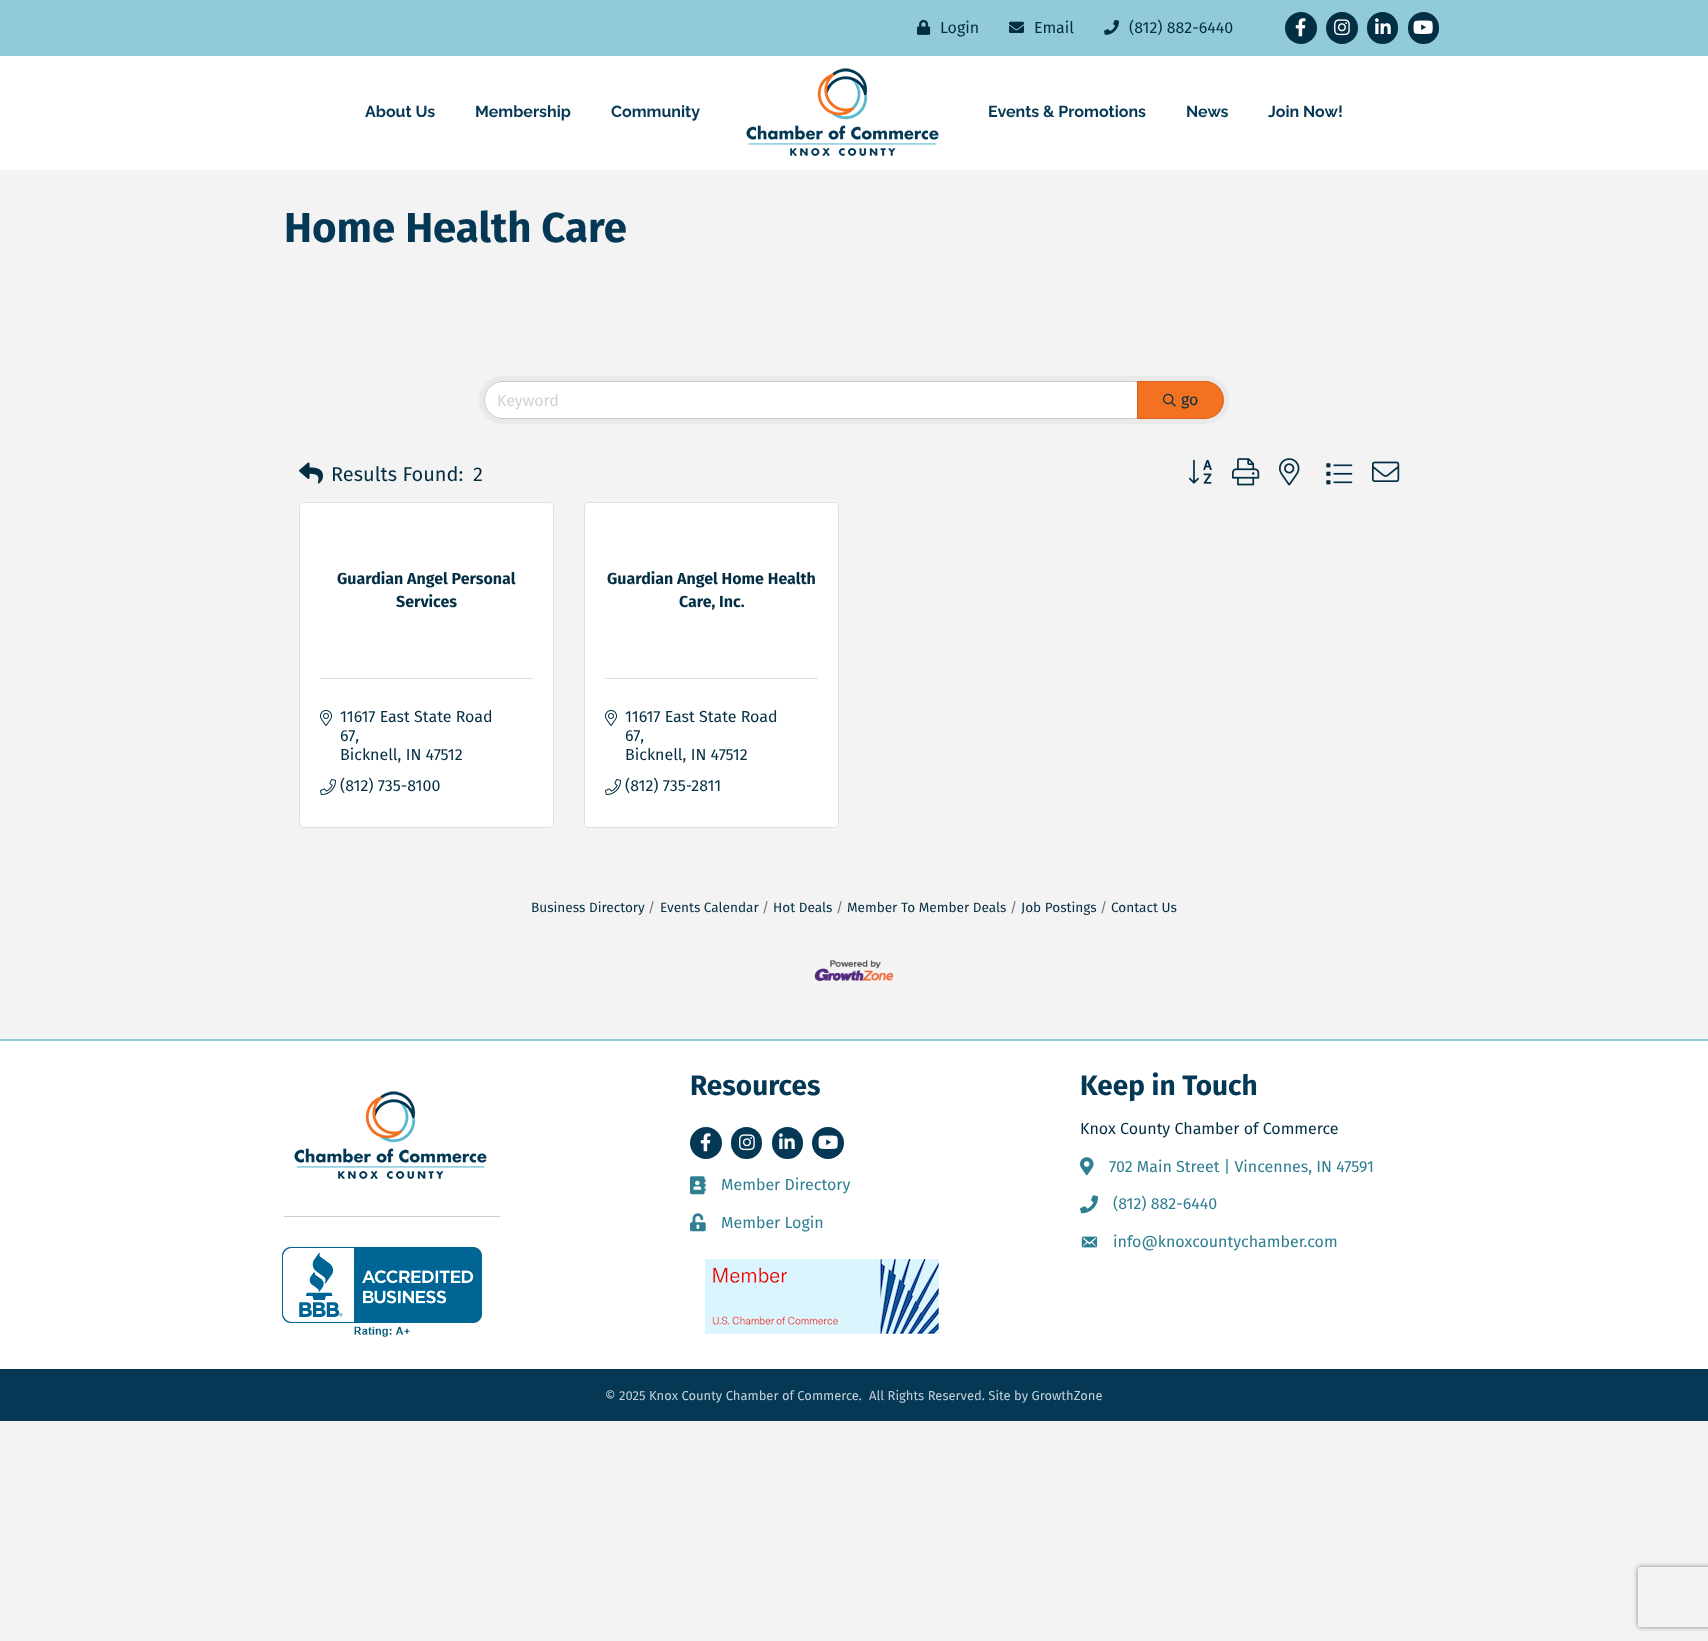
async function draw(canvas) {
  canvas.width = 1708;
  canvas.height = 1641;
  const ctx = canvas.getContext('2d');
  ctx.miterLimit = 4;
  ctx.fontKerning = 'normal';
  function label(s, x, y, font, color) {
    ctx.font = font;
    ctx.fillStyle = color;
    ctx.fillText(s, x, y);
  }
  function rect(x, y, w, h, color) {
    ctx.fillStyle = color;
    ctx.fillRect(x, y, w, h);
  }
  function roundedRect(x, y, w, h, r, color) {
    ctx.fillStyle = color;
    ctx.beginPath();
    ctx.roundRect(x, y, w, h, r);
    ctx.fill();
  }
  async function image(src, x, y, w, h) {
    const img = new Image();
    img.src = src;
    await img.decode();
    ctx.drawImage(img, x, y, w, h);
  }
  let path;

  rect(0, 0, 1708, 1641, '#f3f3f3');
  rect(0, 0, 1708, 56, '#90cbd7');
  await image('assets/img1.png', 917, 19, 14, 16);
  label('Login', 940, 33, '16px Fira Sans', '#032e44');
  await image('assets/img2.png', 1009, 21, 15, 12);
  label('Email', 1034, 33, '16px Fira Sans', '#032e44');
  await image('assets/img3.png', 1104, 19, 15, 16);
  label('(812) 882-6440', 1129, 33, '16px Fira Sans', '#032e44');
  ctx.beginPath();
  ctx.arc(1301, 28, 16, 0, 2 * Math.PI);
  ctx.fill();
  await image('assets/img4.png', 1295, 18, 11, 19);
  ctx.beginPath();
  ctx.arc(1342, 28, 16, 0, 2 * Math.PI);
  ctx.fill();
  await image('assets/img5.png', 1334, 19, 16, 17);
  roundedRect(1367, 12, 31, 32, 15.5, '#032e44');
  await image('assets/img6.png', 1375, 18, 16, 16);
  roundedRect(1408, 12, 31, 32, 15.5, '#032e44');
  await image('assets/img7.png', 1413, 20, 20, 14);
  rect(0, 56, 1708, 114, '#fff');
  label('About Us', 365, 117, '100 16px Raleway', '#043855');
  label('Membership', 475, 117, '100 16px Raleway', '#043855');
  label('Community', 611, 117, '100 16px Raleway', '#043855');
  await image('assets/img8.png', 746, 68, 193, 88);
  label('Events & Promotions', 988, 117, '100 16px Raleway', '#043855');
  label('News', 1186, 117, '100 16px Raleway', '#043855');
  label('Join Now!', 1268, 117, '100 16px Raleway', '#043855');
  label('Home Health Care', 284, 242, 'bold 42px Fira Sans', '#043855');
  roundedRect(479, 376, 750, 48, 24, '#e9e9e9');
  ctx.fillStyle = '#fff';
  ctx.beginPath();
  ctx.roundRect(485, 382, 652, 36, [18, 2, 2, 18]);
  ctx.fill();
  ctx.beginPath();
  ctx.roundRect(484.5, 381.5, 653, 37, [18.5, 2.5, 2.5, 18.5]);
  ctx.strokeStyle = '#0000001f';
  ctx.stroke();
  label('Keyword', 497, 406, '16px Fira Sans', '#d2d2d2');
  ctx.fillStyle = '#f37221';
  ctx.beginPath();
  ctx.roundRect(1137, 381, 87, 38, [0, 19, 19, 0]);
  ctx.fill();
  ctx.beginPath();
  ctx.roundRect(1137.5, 381.5, 86, 37, [0, 18.5, 18.5, 0]);
  ctx.stroke();
  await image('assets/img9.png', 1163, 393, 13, 14);
  label('go', 1181, 405, '16px Fira Sans', '#032e44');
  await image('assets/img10.png', 299, 462, 24, 22);
  label('Results Found:', 331, 481, '20px Fira Sans', '#032e44');
  label('2', 473, 481, '20px Fira Sans', '#032e44');
  await image('assets/img11.png', 1188, 459, 24, 25);
  await image('assets/img12.png', 1232, 458, 28, 28);
  await image('assets/img13.png', 1279, 458, 21, 28);
  await image('assets/img14.png', 1326, 463, 27, 22);
  await image('assets/img15.png', 1372, 461, 28, 21);
  roundedRect(299, 502, 255, 326, 5, '#fff');
  ctx.beginPath();
  ctx.roundRect(299.5, 502.5, 254, 325, 4.5);
  ctx.stroke();
  label('Guardian Angel Personal', 337, 584, 'bold 16px Fira Sans', '#032e44');
  label('Services', 396, 607, 'bold 16px Fira Sans', '#032e44');
  rect(320, 678, 213, 1, '#dfdfdf');
  await image('assets/img16.png', 320, 710, 12, 16);
  label('11617 East State Road', 340, 722, '16px Fira Sans', '#032e44');
  label('67,', 340, 741, '16px Fira Sans', '#032e44');
  label('Bicknell, IN 47512', 340, 760, '16px Fira Sans', '#032e44');
  await image('assets/img17.png', 320, 779, 16, 16);
  label('(812) 735-8100', 340, 791, '16px Fira Sans', '#032e44');
  roundedRect(584, 502, 255, 326, 5, '#fff');
  ctx.beginPath();
  ctx.roundRect(584.5, 502.5, 254, 325, 4.5);
  ctx.stroke();
  label('Guardian Angel Home Health', 607, 584, 'bold 16px Fira Sans', '#032e44');
  label('Care, Inc.', 679, 607, 'bold 16px Fira Sans', '#032e44');
  rect(605, 678, 213, 1, '#dfdfdf');
  await image('assets/img16.png', 605, 710, 12, 16);
  label('11617 East State Road', 625, 722, '16px Fira Sans', '#032e44');
  label('67,', 625, 741, '16px Fira Sans', '#032e44');
  label('Bicknell, IN 47512', 625, 760, '16px Fira Sans', '#032e44');
  await image('assets/img17.png', 605, 779, 16, 16);
  label('(812) 735-2811', 625, 791, '16px Fira Sans', '#032e44');
  label('Business Directory', 531, 912, '13.6px Fira Sans', '#032e44');
  label('/', 648, 912, '13.6px Fira Sans', '#6c757d');
  label('Events Calendar', 660, 912, '13.6px Fira Sans', '#032e44');
  label('/', 762, 912, '13.6px Fira Sans', '#6c757d');
  label('Hot Deals', 773, 912, '13.6px Fira Sans', '#032e44');
  label('/', 836, 912, '13.6px Fira Sans', '#6c757d');
  label('Member To Member Deals', 847, 912, '13.6px Fira Sans', '#032e44');
  label('/', 1010, 912, '13.6px Fira Sans', '#6c757d');
  label('Job Postings', 1021, 912, '13.6px Fira Sans', '#032e44');
  label('/', 1100, 912, '13.6px Fira Sans', '#6c757d');
  label('Contact Us', 1111, 912, '13.6px Fira Sans', '#032e44');
  await image('assets/img18.png', 814, 960, 80, 21);
  rect(0, 1041, 1708, 328, '#fff');
  rect(0, 1039, 1708, 2, '#90cbd7');
  await image('assets/img8.png', 294, 1091, 193, 88);
  rect(284, 1216, 216, 1, '#ccc');
  await image('assets/img19.png', 282, 1247, 200, 90);
  label('Resources', 690, 1095, 'bold 28px Fira Sans', '#043855');
  ctx.beginPath();
  ctx.arc(706, 1143, 16, 0, 2 * Math.PI);
  ctx.fill();
  await image('assets/img20.png', 700, 1133, 11, 19);
  roundedRect(731, 1127, 31, 32, 15.5, '#043855');
  await image('assets/img21.png', 739, 1134, 16, 17);
  roundedRect(772, 1127, 31, 32, 15.5, '#043855');
  await image('assets/img22.png', 779, 1133, 16, 16);
  ctx.beginPath();
  ctx.arc(828, 1143, 16, 0, 2 * Math.PI);
  ctx.fill();
  await image('assets/img23.png', 818, 1135, 20, 14);
  await image('assets/img24.png', 690, 1176, 16, 19);
  label('Member Directory', 721, 1190, '16px Fira Sans', '#2f7f93');
  await image('assets/img25.png', 690, 1213, 16, 19);
  label('Member Login', 721, 1228, '16px Fira Sans', '#2f7f93');
  await image('assets/img26.png', 705, 1259, 234, 75);
  label('Keep in Touch', 1080, 1095, 'bold 28px Fira Sans', '#043855');
  label('Knox County Chamber of Commerce', 1080, 1134, '16px Fira Sans', '#032e44');
  await image('assets/img27.png', 1080, 1157, 14, 19);
  label('702 Main Street | Vincennes, IN 47591', 1109, 1172, '16px Fira Sans', '#2f7f93');
  await image('assets/img28.png', 1080, 1195, 18, 19);
  label('(812) 882-6440', 1113, 1209, '16px Fira Sans', '#2f7f93');
  await image('assets/img29.png', 1081, 1236, 17, 12);
  label('info@knoxcountychamber.com', 1113, 1247, '16px Fira Sans', '#2f7f93');
  rect(0, 1369, 1708, 52, '#043855');
  label('© 2025 Knox County Chamber of Commerce.', 605, 1400, '13px Fira Sans', '#c3cfd6');
  label('All Rights Reserved. Site by GrowthZone', 869, 1400, '13px Fira Sans', '#c3cfd6');
  ctx.save();
  path = new Path2D('M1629 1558H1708V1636H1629ZM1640 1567H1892C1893 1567 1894 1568 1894 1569V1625C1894 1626 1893 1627 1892 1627H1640C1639 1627 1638 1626 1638 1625V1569C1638 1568 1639 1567 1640 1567Z');
  ctx.clip(path, 'evenodd');
  ctx.fillStyle = '#808080';
  ctx.filter = 'blur(2.5px)';
  ctx.beginPath();
  ctx.roundRect(1638, 1567, 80, 60, 2);
  ctx.fill();
  ctx.filter = 'none';
  ctx.restore();
}

draw(document.querySelector('canvas'));
